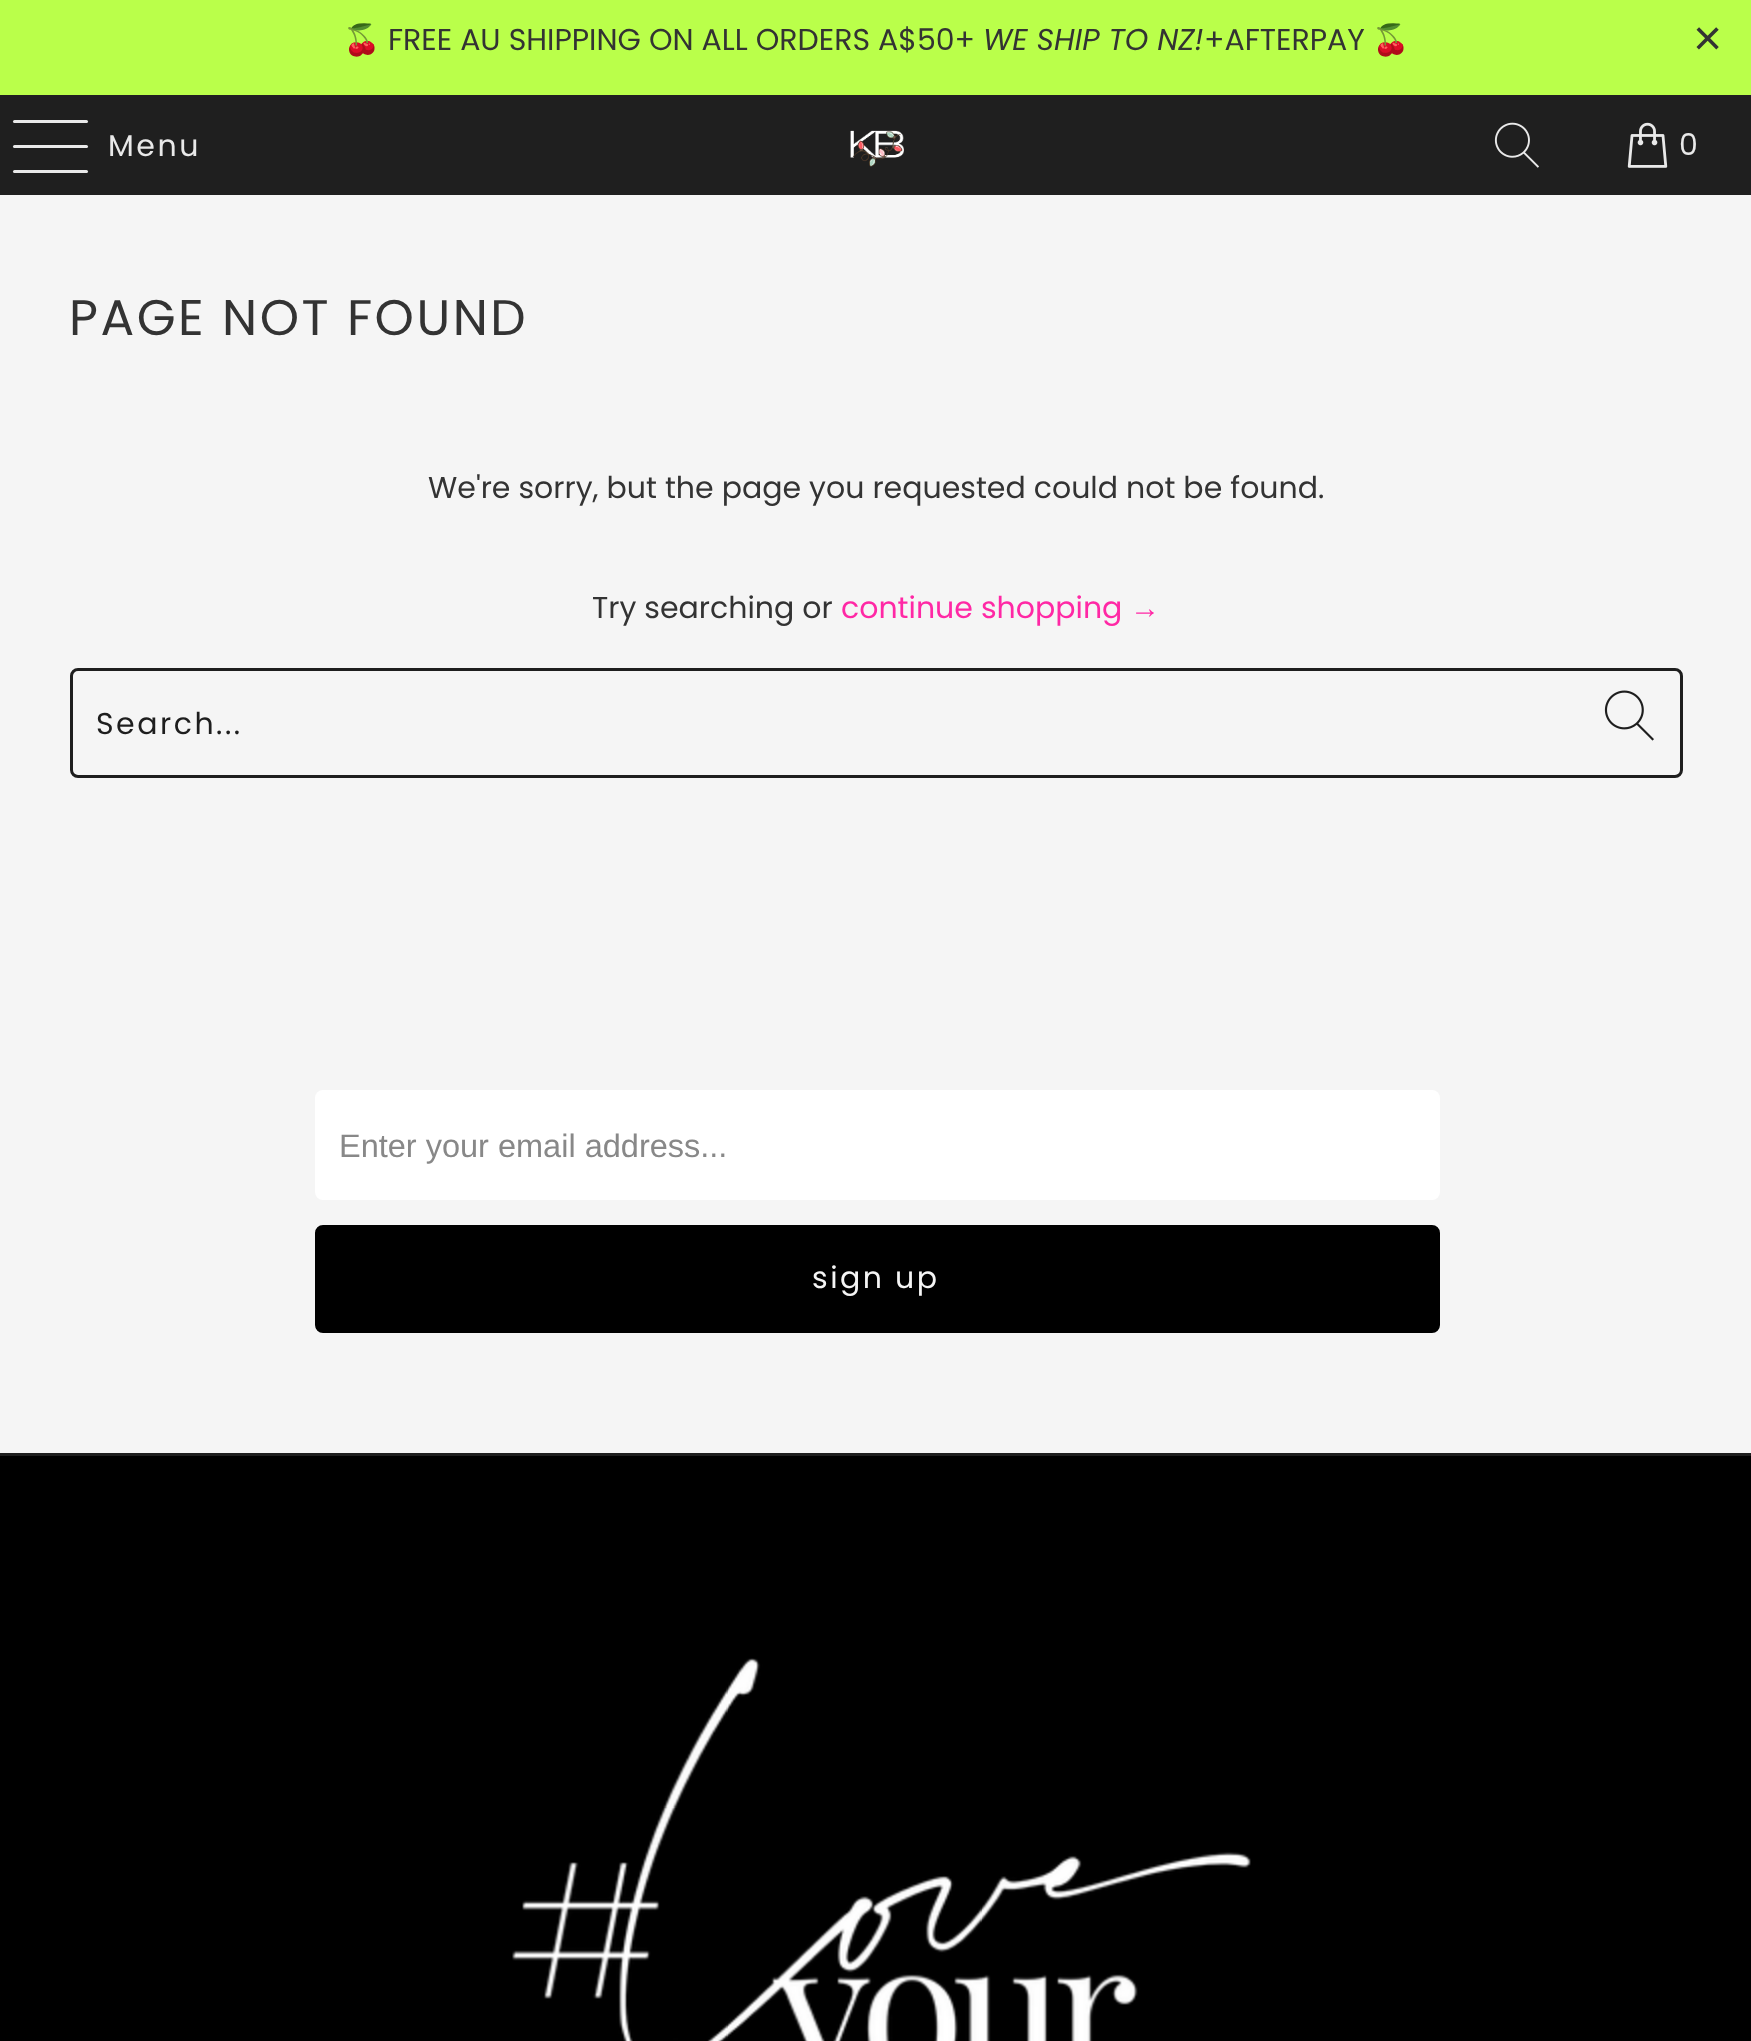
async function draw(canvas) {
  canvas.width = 1751;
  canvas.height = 2041;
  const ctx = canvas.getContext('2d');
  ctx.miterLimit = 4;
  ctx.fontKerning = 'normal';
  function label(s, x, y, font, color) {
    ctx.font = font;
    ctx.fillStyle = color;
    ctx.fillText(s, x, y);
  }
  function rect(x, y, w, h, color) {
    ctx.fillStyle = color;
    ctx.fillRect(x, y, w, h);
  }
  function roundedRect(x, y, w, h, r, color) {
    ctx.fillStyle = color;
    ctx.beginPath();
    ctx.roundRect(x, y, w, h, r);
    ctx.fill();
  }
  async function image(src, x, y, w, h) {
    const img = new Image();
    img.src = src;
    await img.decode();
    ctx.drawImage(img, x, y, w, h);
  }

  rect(0, 0, 1751, 2041, '#f5f5f5');
  rect(0, 0, 1751, 95, '#baff4a');
  label('🍒', 343, 50, '30px Noto Color Emoji', '#333');
  label('FREE AU SHIPPING ON ALL ORDERS A$50+', 388, 50, '30px Poppins', '#333');
  label('WE SHIP TO NZ!', 983, 50, 'italic 30px Poppins', '#333');
  label('+AFTERPAY', 1204, 50, '30px Poppins', '#333');
  label('🍒', 1372, 50, '30px Noto Color Emoji', '#333');
  ctx.letterSpacing = '2.5px';
  label('×', 1693, 55, '50px Liberation Sans', '#333');
  rect(0, 95, 1751, 100, '#1f1f1f');
  roundedRect(13, 120, 75, 3, 1.5, '#e9e9e9');
  roundedRect(13, 145, 75, 3, 1.5, '#e9e9e9');
  roundedRect(13, 170, 75, 3, 1.5, '#e9e9e9');
  label('Menu', 108, 156, '30px Poppins', '#e9e9e9');
  await image('assets/img1.png', 850, 130, 54, 37);
  await image('assets/img2.png', 1494, 122, 45, 46);
  await image('assets/img3.png', 1627, 122, 41, 46);
  label('0', 1679, 155, '30px Poppins', '#e9e9e9');
  label('PAGE NOT FOUND', 69, 335, '50px Poppins', '#333');
  ctx.letterSpacing = '0px';
  label('We\'re sorry, but the page you requested could not be found.', 428, 498, '30px Poppins', '#333');
  label('Try searching or', 592, 618, '30px Poppins', '#333');
  label('continue shopping', 841, 618, '30px Poppins', '#ff28a5');
  label('→', 1130, 618, '30px Liberation Sans', '#ff28a5');
  ctx.beginPath();
  ctx.roundRect(71.5, 669.5, 1610, 107, 6.5);
  ctx.strokeStyle = '#1e1e1e';
  ctx.lineWidth = 3;
  ctx.stroke();
  ctx.letterSpacing = '2.5px';
  label('Search...', 96, 734, '30px Poppins', '#1e1e1e');
  await image('assets/img4.png', 1604, 690, 50, 51);
  roundedRect(315, 1090, 1125, 110, 8, '#fff');
  ctx.letterSpacing = '0px';
  label('Enter your email address...', 339, 1157, '32.5px Liberation Sans', '#888');
  ctx.fillStyle = '#000';
  ctx.beginPath();
  ctx.roundRect(316.5, 1226.5, 1122, 105, 6.5);
  ctx.fill();
  ctx.strokeStyle = '#000';
  ctx.stroke();
  ctx.letterSpacing = '2.5px';
  label('sign up', 812, 1288, '30px Poppins', '#f5f5f5');
  rect(0, 1456, 1751, 585, '#000');
  rect(0, 1453, 1751, 3, '#1e1e1e');
  await image('assets/img5.png', 512, 1658, 739, 383);
}

draw(document.querySelector('canvas'));
